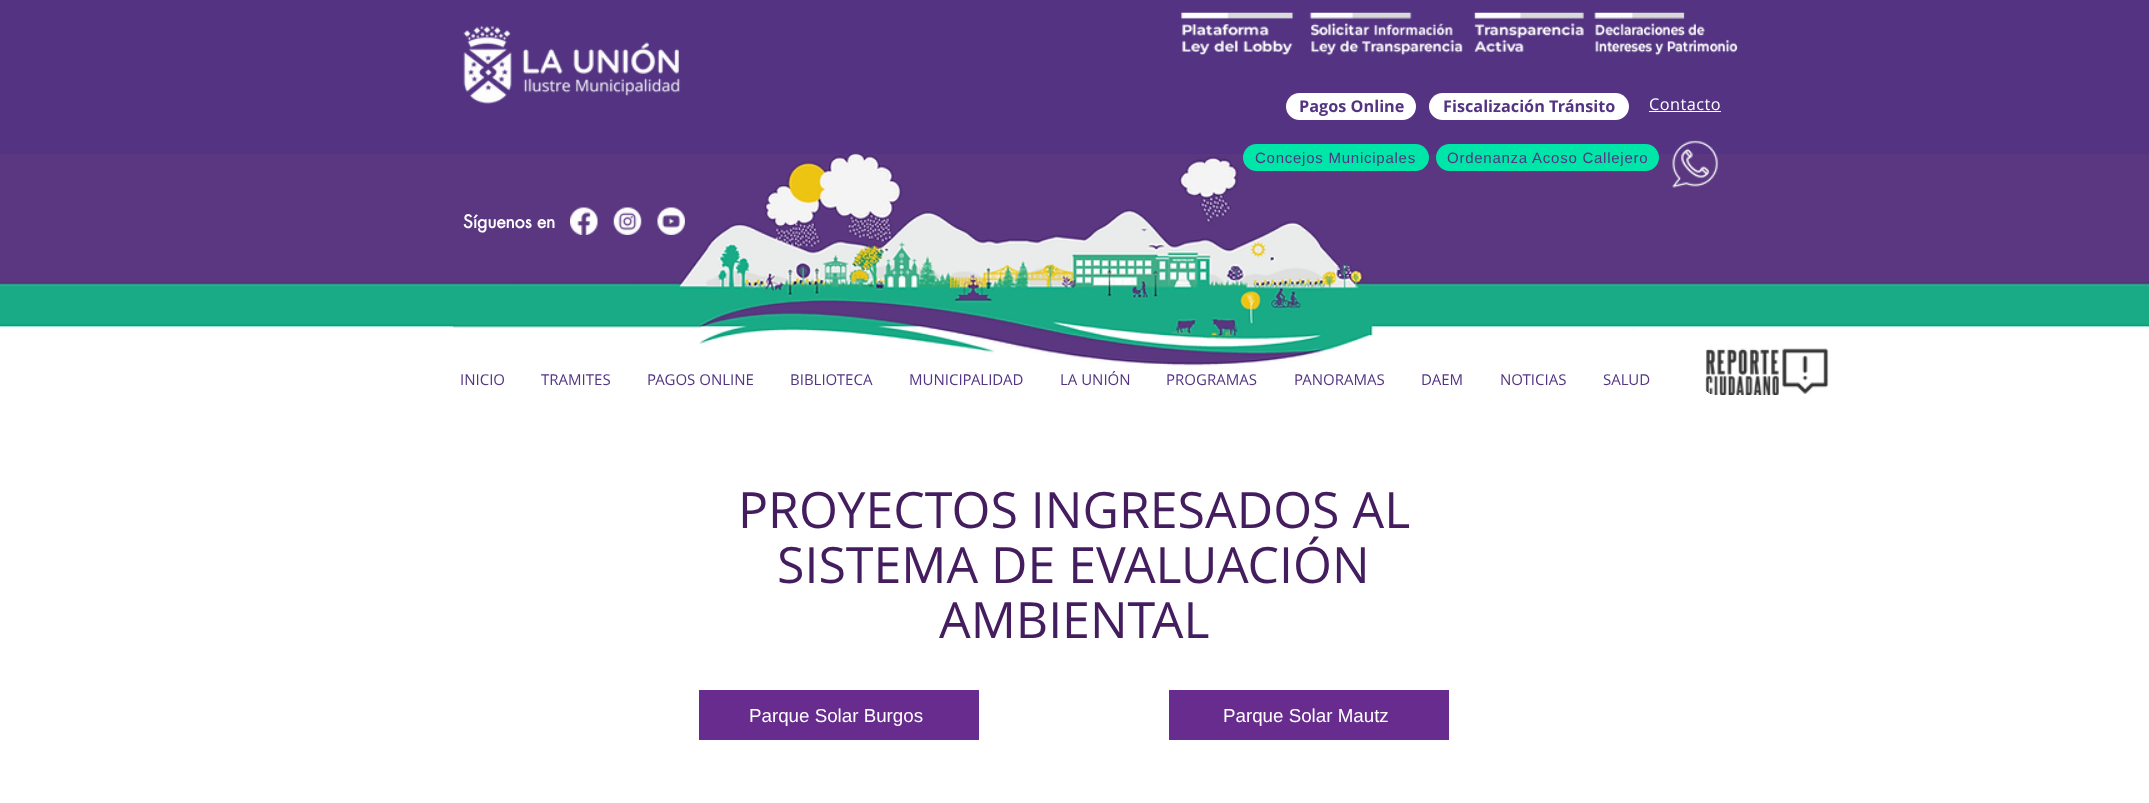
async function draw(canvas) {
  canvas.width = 2149;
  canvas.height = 803;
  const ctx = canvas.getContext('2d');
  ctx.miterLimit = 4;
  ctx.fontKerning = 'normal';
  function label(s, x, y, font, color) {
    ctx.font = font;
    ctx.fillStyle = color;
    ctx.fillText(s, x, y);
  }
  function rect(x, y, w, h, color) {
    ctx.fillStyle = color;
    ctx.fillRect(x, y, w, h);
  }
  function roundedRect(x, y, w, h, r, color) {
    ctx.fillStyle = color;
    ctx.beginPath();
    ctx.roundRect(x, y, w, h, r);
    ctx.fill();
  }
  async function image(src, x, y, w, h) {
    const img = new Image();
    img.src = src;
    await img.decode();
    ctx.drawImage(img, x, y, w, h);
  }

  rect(0, 0, 2149, 803, '#fff');
  rect(0, 0, 2149, 154, '#533382');
  await image('assets/img1.png', 463, 26, 218, 78);
  await image('assets/img2.png', 1181, 12, 113, 43);
  await image('assets/img3.png', 1309, 12, 154, 44);
  await image('assets/img4.png', 1473, 12, 111, 41);
  await image('assets/img5.png', 1594, 12, 144, 44);
  roundedRect(1286, 93, 130, 27, 13.5, '#fff');
  label('Pagos Online', 1299, 112, 'bold 16.25px Open Sans', '#533382');
  roundedRect(1429, 93, 200, 27, 13.5, '#fff');
  label('Fiscalización Tránsito', 1443, 112, 'bold 16.25px Open Sans', '#533382');
  ctx.letterSpacing = '0.5px';
  label('Contacto', 1649, 110, '16.25px Open Sans', '#fff');
  rect(1649, 111, 72, 1, '#fff');
  await image('assets/img7.png', 0, 153, 2149, 253);
  roundedRect(1243, 144, 186, 27, 13.5, '#00e6a8');
  ctx.save();
  ctx.beginPath();
  ctx.rect(1255, 149, 161, 17);
  ctx.clip();
  ctx.letterSpacing = '0.75px';
  label('Concejos Municipales', 1255, 163, '15px Liberation Sans', '#533382');
  ctx.restore();
  roundedRect(1436, 144, 223, 27, 13.5, '#00e6a8');
  ctx.letterSpacing = '0.75px';
  label('Ordenanza Acoso Callejero', 1447, 163, '15px Liberation Sans', '#533382');
  await image('assets/img6.png', 1672, 140, 47, 48);
  ctx.letterSpacing = '0px';
  label('Síguenos en', 463, 228, 'bold 17.5px futura', '#fff');
  await image('assets/img8.png', 570, 207, 28, 28);
  await image('assets/img9.png', 613, 207, 29, 28);
  await image('assets/img10.png', 657, 207, 28, 28);
  label('INICIO', 460, 385, '15px Open Sans', '#533382');
  label('TRAMITES', 541, 385, '15px Open Sans', '#533382');
  label('PAGOS ONLINE', 647, 385, '15px Open Sans', '#533382');
  label('BIBLIOTECA', 790, 385, '15px Open Sans', '#533382');
  label('MUNICIPALIDAD', 909, 385, '15px Open Sans', '#533382');
  label('LA UNIÓN', 1060, 385, '15px Open Sans', '#533382');
  label('PROGRAMAS', 1166, 385, '15px Open Sans', '#533382');
  label('PANORAMAS', 1294, 385, '15px Open Sans', '#533382');
  label('DAEM', 1421, 385, '15px Open Sans', '#533382');
  label('NOTICIAS', 1500, 385, '15px Open Sans', '#533382');
  label('SALUD', 1603, 385, '15px Open Sans', '#533382');
  await image('assets/img11.png', 1705, 348, 124, 47);
  label('PROYECTOS INGRESADOS AL', 738, 528, '50px Open Sans', '#441d5f');
  label('SISTEMA DE EVALUACIÓN', 777, 583, '50px Open Sans', '#441d5f');
  label('AMBIENTAL', 939, 638, '50px Open Sans', '#441d5f');
  rect(699, 690, 280, 50, '#672c8e');
  label('Parque Solar Burgos', 749, 722, '18.75px Liberation Sans', '#fff');
  rect(1169, 690, 280, 50, '#672c8e');
  label('Parque Solar Mautz', 1223, 722, '18.75px Liberation Sans', '#fff');
}

draw(document.querySelector('canvas'));
